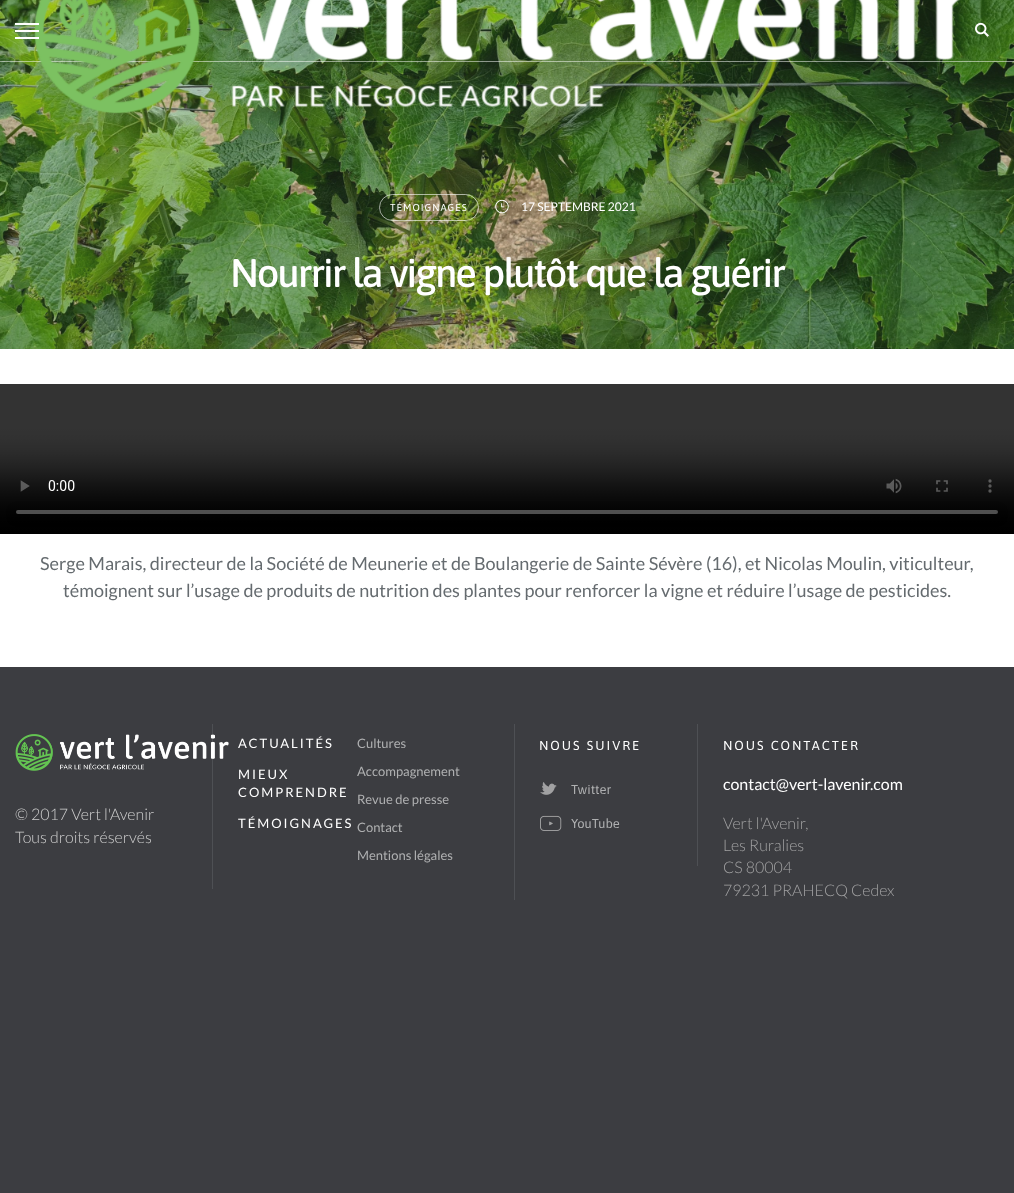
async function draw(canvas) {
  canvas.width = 1014;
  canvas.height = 1193;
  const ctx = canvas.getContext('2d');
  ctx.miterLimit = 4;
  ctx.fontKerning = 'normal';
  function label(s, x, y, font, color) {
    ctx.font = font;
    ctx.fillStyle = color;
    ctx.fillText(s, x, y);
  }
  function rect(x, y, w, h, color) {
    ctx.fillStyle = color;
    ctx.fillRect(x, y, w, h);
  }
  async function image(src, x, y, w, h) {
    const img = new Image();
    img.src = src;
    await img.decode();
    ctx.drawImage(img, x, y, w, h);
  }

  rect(0, 0, 1014, 1193, '#3c3d41');
  rect(0, 349, 1014, 318, '#fff');
  await image('assets/img3.png', 0, 0, 1014, 349);
  rect(0, 61, 1014, 1, '#ffffff80');
  await image('assets/img1.png', 34, 0, 926, 114);
  rect(15, 30, 24, 2, '#fff');
  rect(15, 23, 24, 2, '#fff');
  rect(15, 37, 24, 2, '#fff');
  await image('assets/img2.png', 975, 22, 14, 15);
  ctx.beginPath();
  ctx.roundRect(379.5, 194.5, 99, 26, 13);
  ctx.strokeStyle = '#ffffff99';
  ctx.stroke();
  ctx.letterSpacing = '1px';
  label('TÉMOIGNAGES', 390, 211, '10px Asap', '#fff');
  await image('assets/img4.png', 495, 199, 14, 15);
  ctx.letterSpacing = '0px';
  label('17 SEPTEMBRE 2021', 521, 211, '12px Lato', '#fff');
  ctx.letterSpacing = '-2px';
  label('Nourrir la vigne plutôt que la guérir', 230, 287, '500 40px Asap', '#fff');
  await image('assets/img5.png', 0, 384, 1014, 150);
  ctx.letterSpacing = '0px';
  label('Serge Marais, directeur de la Société de Meunerie et de Boulangerie de Sainte Sévère (16), et Nicolas Moulin, viticulteur,', 40, 570, '18px Lato', '#656b6f');
  label('témoignent sur l’usage de produits de nutrition des plantes pour renforcer la vigne et réduire l’usage de pesticides.', 63, 597, '18px Lato', '#656b6f');
  rect(212, 724, 1, 165, '#4e5054');
  await image('assets/img6.png', 15, 734, 214, 37);
  label('© 2017 Vert l\'Avenir', 15, 820, '300 16px Lato', '#cdcdcd');
  label('Tous droits réservés', 15, 843, '300 16px Lato', '#cdcdcd');
  rect(514, 724, 1, 176, '#4e5054');
  ctx.letterSpacing = '2px';
  label('ACTUALITÉS', 238, 748, '13px Lato', '#fff');
  label('MIEUX', 238, 779, '13px Lato', '#fff');
  label('COMPRENDRE', 238, 797, '13px Lato', '#fff');
  label('TÉMOIGNAGES', 238, 828, '13px Lato', '#fff');
  ctx.letterSpacing = '0px';
  label('Cultures', 357, 748, '13px Lato', '#afb0b1');
  label('Accompagnement', 357, 776, '13px Lato', '#afb0b1');
  label('Revue de presse', 357, 804, '13px Lato', '#afb0b1');
  label('Contact', 357, 832, '13px Lato', '#afb0b1');
  label('Mentions légales', 357, 860, '13px Lato', '#afb0b1');
  rect(697, 724, 1, 142, '#4e5054');
  ctx.letterSpacing = '2px';
  label('NOUS SUIVRE', 539, 750, '13px Asap', '#fff');
  await image('assets/img7.png', 540, 782, 17, 13);
  ctx.letterSpacing = '0px';
  label('Twitter', 571, 794, '13px Asap', '#afb0b1');
  await image('assets/img8.png', 540, 815, 22, 16);
  label('YouTube', 571, 828, '13px Asap', '#afb0b1');
  ctx.letterSpacing = '2px';
  label('NOUS CONTACTER', 723, 750, '13px Asap', '#fff');
  ctx.letterSpacing = '0px';
  label('contact@vert-lavenir.com', 723, 790, '16px Lato', '#fff');
  label('Vert l\'Avenir,', 723, 829, '300 16px Lato', '#a1a1a2');
  label('Les Ruralies', 723, 851, '300 16px Lato', '#a1a1a2');
  label('CS 80004', 723, 873, '300 16px Lato', '#a1a1a2');
  label('79231 PRAHECQ Cedex', 723, 896, '300 16px Lato', '#a1a1a2');
}

draw(document.querySelector('canvas'));
